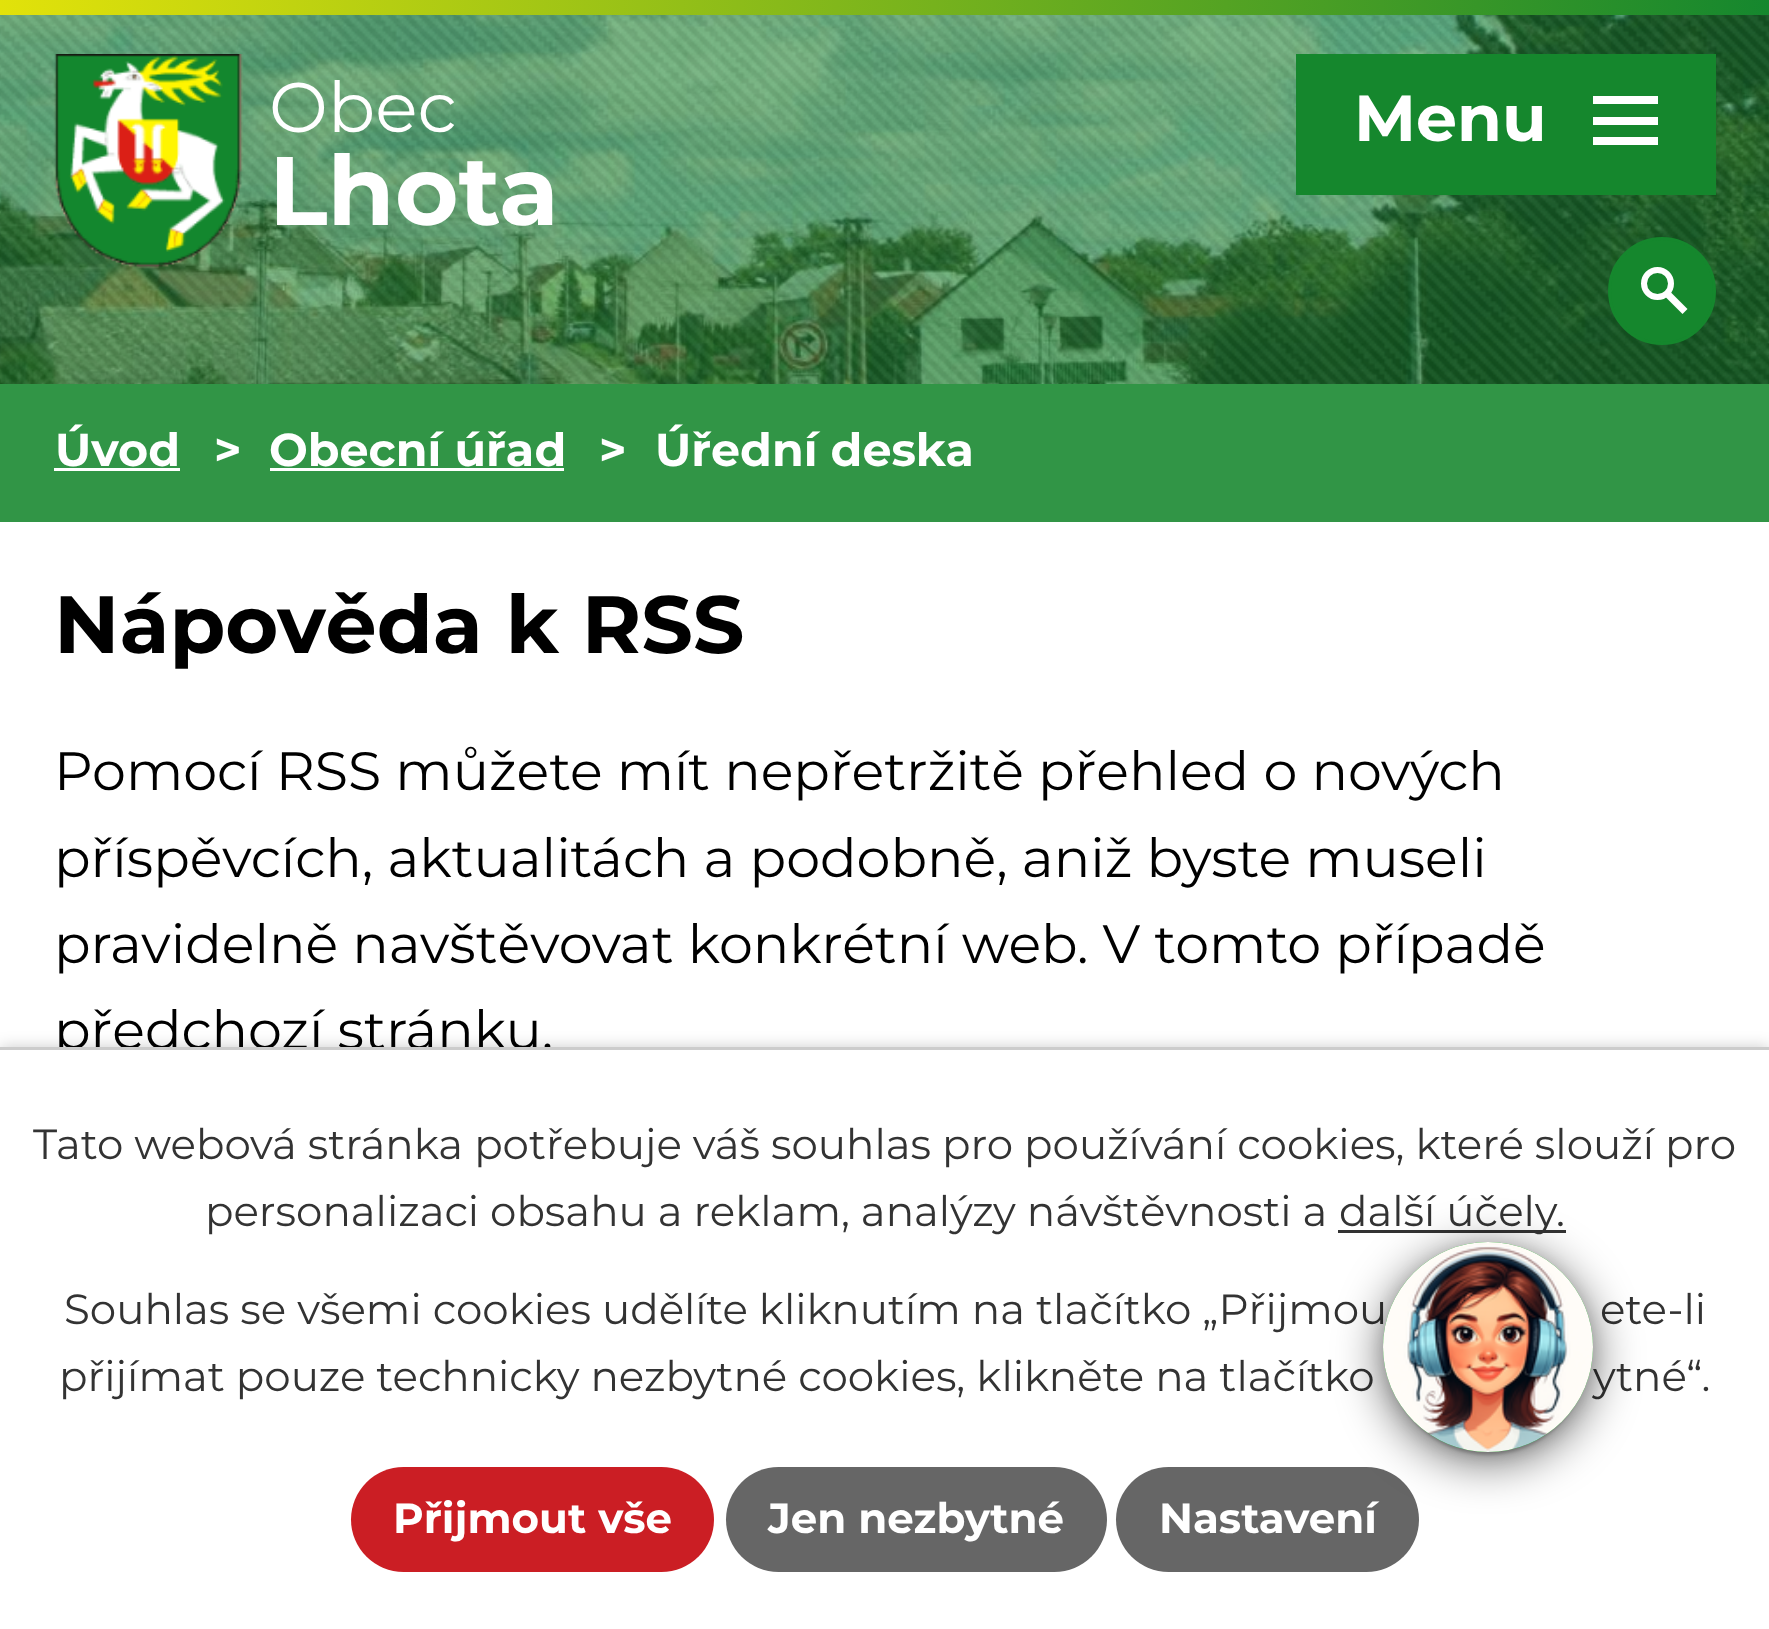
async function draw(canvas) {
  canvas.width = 1769;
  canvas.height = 1629;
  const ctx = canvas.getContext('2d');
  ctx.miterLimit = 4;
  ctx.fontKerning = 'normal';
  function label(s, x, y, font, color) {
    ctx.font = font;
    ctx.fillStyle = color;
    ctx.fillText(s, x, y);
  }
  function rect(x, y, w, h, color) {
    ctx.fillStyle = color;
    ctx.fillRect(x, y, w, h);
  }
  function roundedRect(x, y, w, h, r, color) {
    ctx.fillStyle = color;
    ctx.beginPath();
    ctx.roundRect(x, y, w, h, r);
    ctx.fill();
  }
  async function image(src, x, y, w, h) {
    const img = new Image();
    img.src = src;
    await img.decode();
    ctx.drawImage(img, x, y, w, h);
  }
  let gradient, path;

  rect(0, 0, 1769, 1629, '#fff');
  await image('assets/img1.png', 0, 15, 1769, 369);
  await image('assets/img2.png', 0, 15, 1769, 369);
  gradient = ctx.createLinearGradient(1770, 7.5, 0, 7.5);
  gradient.addColorStop(0, '#15872e');
  gradient.addColorStop(1, '#e2e20a');
  ctx.fillStyle = gradient;
  ctx.fillRect(0, 0, 1769, 15);
  await image('assets/img3.png', 54, 54, 189, 215);
  label('Obec', 269, 132, '70px Montserrat', '#fff');
  label('Lhota', 269, 225, 'bold 97px Montserrat', '#fff');
  ctx.fillStyle = '#15872d';
  ctx.beginPath();
  ctx.arc(1662, 291, 52.5, 0, 2 * Math.PI);
  ctx.fill();
  ctx.strokeStyle = '#15872d';
  ctx.lineWidth = 3;
  ctx.stroke();
  ctx.beginPath();
  ctx.arc(1657.5, 283.5, 13.5, 0, 2 * Math.PI);
  ctx.strokeStyle = '#fff';
  ctx.lineWidth = 6;
  ctx.stroke();
  ctx.fillStyle = '#fff';
  path = new Path2D('M1670.5 292L1687.5 309L1682.5 314L1665.5 297Z');
  ctx.fill(path);
  rect(1296, 54, 420, 141, '#15872d');
  label('Menu', 1354, 141, 'bold 65px Montserrat', '#fff');
  path = new Path2D('M1593 145V137H1658V145ZM1593 96H1658V104H1593ZM1593 125V117H1658V125Z');
  ctx.fill(path);
  rect(0, 384, 1769, 138, '#319546');
  label('Úvod', 55, 466, 'bold 46px Montserrat', '#fff');
  rect(54, 468, 126, 3, '#fff');
  label('>', 214, 466, 'bold 46px Montserrat', '#fff');
  label('Obecní úřad', 269, 466, 'bold 46px Montserrat', '#fff');
  rect(270, 468, 294, 3, '#fff');
  label('>', 599, 466, 'bold 46px Montserrat', '#fff');
  label('Úřední deska', 655, 466, 'bold 46px Montserrat', '#fff');
  label('Nápověda k RSS', 54, 653, 'bold 81px Montserrat', '#000');
  label('Pomocí RSS můžete mít nepřetržitě přehled o nových', 54, 790, '54px Montserrat', '#000');
  label('příspěvcích, aktualitách a podobně, aniž byste museli', 54, 877, '54px Montserrat', '#000');
  label('pravidelně navštěvovat konkrétní web. V tomto případě', 54, 963, '54px Montserrat', '#000');
  label('předchozí stránku.', 54, 1049, '54px Montserrat', '#000');
  ctx.fillStyle = '#00000033';
  ctx.filter = 'blur(7.5px)';
  ctx.beginPath();
  ctx.rect(0, 1047, 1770, 582);
  ctx.fill();
  ctx.filter = 'none';
  rect(0, 1050, 1769, 579, '#fff');
  rect(0, 1047, 1769, 3, '#ccc');
  label('Tato webová stránka potřebuje váš souhlas pro používání cookies, které slouží pro', 33, 1159, '42px Montserrat', '#333');
  label('personalizaci obsahu a reklam, analýzy návštěvnosti a', 205, 1226, '42px Montserrat', '#333');
  rect(1338, 1230, 228, 3, '#333');
  label('další účely.', 1339, 1226, '42px Montserrat', '#333');
  label('Souhlas se všemi cookies udělíte kliknutím na tlačítko „Přijmou', 64, 1324, '42px Montserrat', '#333');
  label('ete-li', 1600, 1324, '42px Montserrat', '#333');
  label('přijímat pouze technicky nezbytné cookies, klikněte na tlačítko', 59, 1391, '42px Montserrat', '#333');
  label('ytné“.', 1593, 1391, '42px Montserrat', '#333');
  roundedRect(351, 1467, 363, 105, 52.5, '#cb1e24');
  label('Přijmout vše', 393, 1533, 'bold 42px Montserrat', '#fff');
  roundedRect(726, 1467, 381, 105, 52.5, '#666');
  label('Jen nezbytné', 768, 1533, 'bold 42px Montserrat', '#fff');
  roundedRect(1116, 1467, 303, 105, 52.5, '#666');
  label('Nastavení', 1159, 1533, 'bold 42px Montserrat', '#fff');
  ctx.fillStyle = '#0000001f';
  ctx.filter = 'blur(7.5px)';
  ctx.beginPath();
  ctx.roundRect(1383, 1245, 210, 210, 105);
  ctx.fill();
  ctx.filter = 'none';
  ctx.fillStyle = '#00000033';
  ctx.filter = 'blur(1.5px)';
  ctx.beginPath();
  ctx.roundRect(1389, 1257, 198, 198, 99);
  ctx.fill();
  ctx.filter = 'none';
  ctx.fillStyle = '#00000099';
  ctx.filter = 'blur(24px)';
  ctx.beginPath();
  ctx.roundRect(1383, 1251, 210, 210, 105);
  ctx.fill();
  ctx.filter = 'none';
  ctx.fillStyle = '#099f13';
  ctx.beginPath();
  ctx.arc(1488, 1347, 105, 0, 2 * Math.PI);
  ctx.fill();
  await image('assets/img4.png', 1383, 1242, 210, 210);
}

draw(document.querySelector('canvas'));
